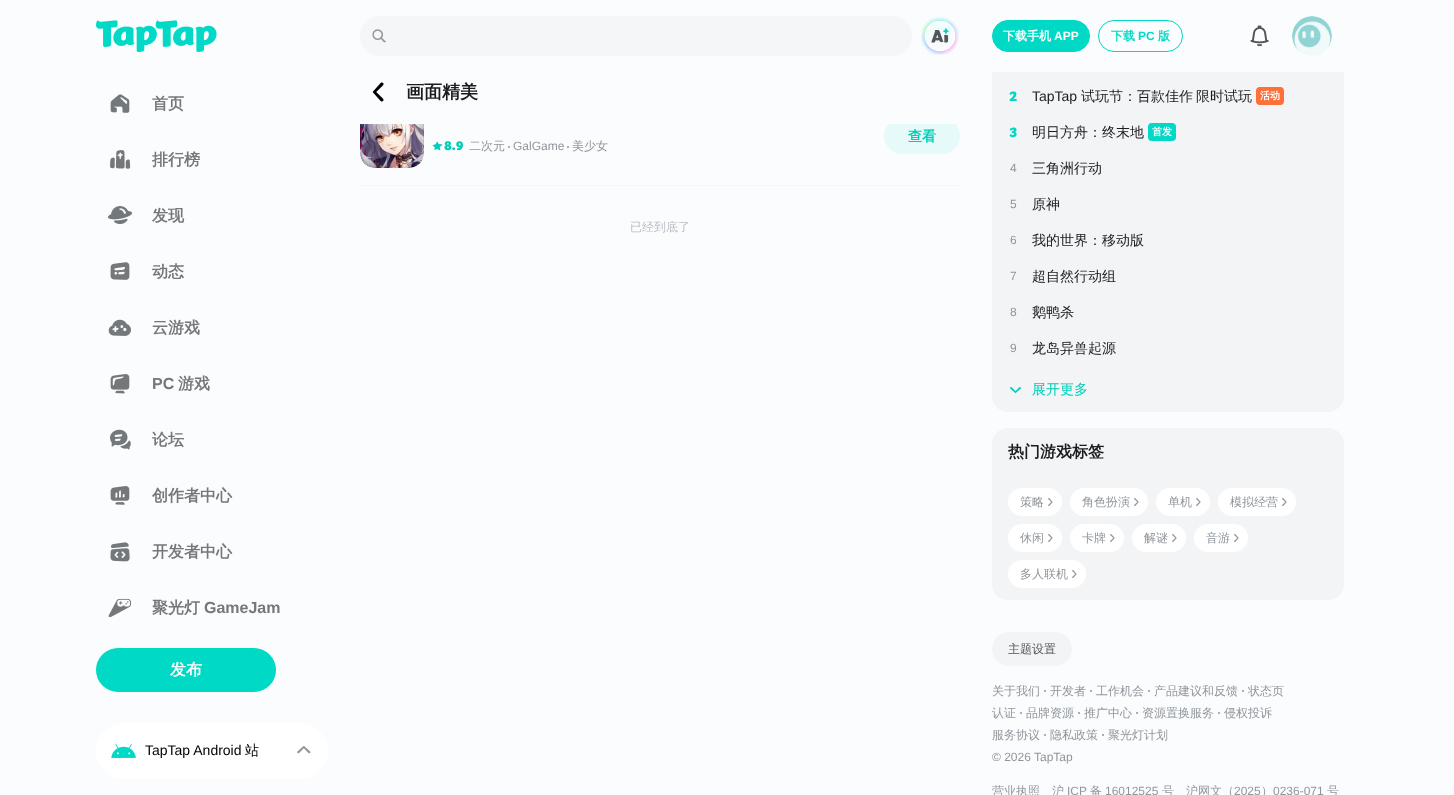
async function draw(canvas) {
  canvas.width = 1454;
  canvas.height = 795;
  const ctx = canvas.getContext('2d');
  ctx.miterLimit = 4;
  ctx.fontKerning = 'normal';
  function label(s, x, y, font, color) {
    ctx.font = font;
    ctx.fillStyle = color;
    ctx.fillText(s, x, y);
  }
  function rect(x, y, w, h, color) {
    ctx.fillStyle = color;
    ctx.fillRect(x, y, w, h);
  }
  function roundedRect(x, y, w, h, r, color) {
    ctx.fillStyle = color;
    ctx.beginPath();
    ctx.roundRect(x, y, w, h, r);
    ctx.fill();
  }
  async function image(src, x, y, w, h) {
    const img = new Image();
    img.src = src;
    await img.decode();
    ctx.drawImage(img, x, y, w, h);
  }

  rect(0, 0, 1454, 795, '#fafcfd');
  await image('assets/img1.png', 96, 20, 121, 32);
  await image('assets/img2.png', 110, 94, 20, 19);
  label('首页', 152, 109, 'bold 16px WenQuanYi Zen Hei', '#75787b');
  await image('assets/img3.png', 110, 150, 21, 19);
  label('排行榜', 152, 165, 'bold 16px WenQuanYi Zen Hei', '#75787b');
  await image('assets/img4.png', 108, 206, 24, 19);
  label('发现', 152, 221, 'bold 16px WenQuanYi Zen Hei', '#75787b');
  await image('assets/img5.png', 110, 262, 20, 18);
  label('动态', 152, 277, 'bold 16px WenQuanYi Zen Hei', '#75787b');
  await image('assets/img6.png', 108, 319, 23, 17);
  label('云游戏', 152, 333, 'bold 16px WenQuanYi Zen Hei', '#75787b');
  await image('assets/img7.png', 110, 374, 20, 20);
  label('PC', 152, 389, 'bold 16px Liberation Sans', '#75787b');
  label('游戏', 178, 389, 'bold 16px WenQuanYi Zen Hei', '#75787b');
  await image('assets/img8.png', 110, 429, 21, 21);
  label('论坛', 152, 445, 'bold 16px WenQuanYi Zen Hei', '#75787b');
  await image('assets/img9.png', 110, 486, 20, 19);
  label('创作者中心', 152, 501, 'bold 16px WenQuanYi Zen Hei', '#75787b');
  await image('assets/img10.png', 110, 542, 20, 20);
  label('开发者中心', 152, 557, 'bold 16px WenQuanYi Zen Hei', '#75787b');
  await image('assets/img11.png', 108, 598, 23, 19);
  label('聚光灯', 152, 613, 'bold 16px WenQuanYi Zen Hei', '#75787b');
  label('GameJam', 204, 613, 'bold 16px Liberation Sans', '#75787b');
  roundedRect(96, 648, 180, 44, 22, '#00d9c5');
  label('发布', 170, 675, 'bold 16px WenQuanYi Zen Hei', '#fff');
  roundedRect(96, 723, 232, 56, 28, '#fff');
  await image('assets/img12.png', 111, 744, 25, 14);
  label('TapTap Android', 145, 755, '14px Liberation Sans', '#000');
  label('站', 245, 755, '500 14px WenQuanYi Zen Hei', '#000');
  await image('assets/img13.png', 297, 746, 14, 8);
  roundedRect(360, 16, 552, 40, 20, '#f4f6f8');
  await image('assets/img14.png', 372, 29, 14, 14);
  await image('assets/img15.png', 921, 16, 38, 39);
  ctx.fillStyle = '#e6fbf9';
  ctx.beginPath();
  ctx.roundRect(884.5, 118.5, 75, 35, 17.5);
  ctx.fill();
  ctx.strokeStyle = '#e6fbf9';
  ctx.stroke();
  rect(888, 118, 68, 6, '#fafcfd');
  await image('assets/img16.png', 372, 82, 12, 20);
  label('画面精美', 406, 98, 'bold 18px WenQuanYi Zen Hei', '#1a1c1e');
  await image('assets/img17.png', 360, 124, 64, 44);
  label('查看', 908, 141, 'bold 14px WenQuanYi Zen Hei', '#00cdba');
  await image('assets/img18.png', 432, 141, 11, 10);
  label('8.9', 444, 150, '900 13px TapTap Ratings', '#00cdba');
  label('二次元', 469, 150, '500 12px WenQuanYi Zen Hei', '#90969c');
  ctx.beginPath();
  ctx.arc(509, 147, 1, 0, 2 * Math.PI);
  ctx.fill();
  label('GalGame', 513, 150, '12px Liberation Sans', '#90969c');
  ctx.beginPath();
  ctx.arc(568, 147, 1, 0, 2 * Math.PI);
  ctx.fill();
  label('美少女', 572, 150, '500 12px WenQuanYi Zen Hei', '#90969c');
  rect(360, 185, 600, 1, '#f4f6f8');
  label('已经到底了', 630, 231, '500 12px WenQuanYi Zen Hei', '#b8bec4');
  roundedRect(992, 2, 352, 410, 16, '#f2f4f6');
  rect(992, 2, 352, 70, '#fafcfd');
  ctx.fillStyle = '#00d9c5';
  ctx.beginPath();
  ctx.roundRect(992.5, 20.5, 97, 31, 15.5);
  ctx.fill();
  ctx.strokeStyle = '#00d9c5';
  ctx.stroke();
  label('下载手机', 1003, 40, 'bold 12px WenQuanYi Zen Hei', '#fff');
  label('APP', 1054, 40, 'bold 12px Liberation Sans', '#fff');
  ctx.beginPath();
  ctx.roundRect(1098.5, 20.5, 84, 31, 15.5);
  ctx.stroke();
  label('下载', 1111, 40, 'bold 12px WenQuanYi Zen Hei', '#00d9c5');
  label('PC', 1138, 40, 'bold 12px Liberation Sans', '#00d9c5');
  label('版', 1158, 40, 'bold 12px WenQuanYi Zen Hei', '#00d9c5');
  await image('assets/img19.png', 1250, 25, 19, 22);
  await image('assets/img20.png', 1292, 16, 40, 40);
  label('2', 1009, 101, '900 14px TapTap Ratings', '#00d9c5');
  label('TapTap', 1032, 101, '14px Liberation Sans', '#1a1c1e');
  label('试玩节：百款佳作', 1081, 101, '500 14px WenQuanYi Zen Hei', '#1a1c1e');
  label('限时试玩', 1196, 101, '500 14px WenQuanYi Zen Hei', '#1a1c1e');
  roundedRect(1256, 87, 28, 18, 4, '#ff6f38');
  label('活动', 1260, 99, 'bold 10px WenQuanYi Zen Hei', '#fff');
  label('3', 1009, 137, '900 14px TapTap Ratings', '#00d9c5');
  label('明日方舟：终末地', 1032, 137, '500 14px WenQuanYi Zen Hei', '#1a1c1e');
  roundedRect(1148, 123, 28, 18, 4, '#00d9c5');
  label('首发', 1152, 135, 'bold 10px WenQuanYi Zen Hei', '#fff');
  label('4', 1010, 172, '12px Liberation Sans', '#90969c');
  label('三角洲行动', 1032, 173, '500 14px WenQuanYi Zen Hei', '#1a1c1e');
  label('5', 1010, 208, '12px Liberation Sans', '#90969c');
  label('原神', 1032, 209, '500 14px WenQuanYi Zen Hei', '#1a1c1e');
  label('6', 1010, 244, '12px Liberation Sans', '#90969c');
  label('我的世界：移动版', 1032, 245, '500 14px WenQuanYi Zen Hei', '#1a1c1e');
  label('7', 1010, 280, '12px Liberation Sans', '#90969c');
  label('超自然行动组', 1032, 281, '500 14px WenQuanYi Zen Hei', '#1a1c1e');
  label('8', 1010, 316, '12px Liberation Sans', '#90969c');
  label('鹅鸭杀', 1032, 317, '500 14px WenQuanYi Zen Hei', '#1a1c1e');
  label('9', 1010, 352, '12px Liberation Sans', '#90969c');
  label('龙岛异兽起源', 1032, 353, '500 14px WenQuanYi Zen Hei', '#1a1c1e');
  await image('assets/img21.png', 1010, 387, 11, 6);
  label('展开更多', 1032, 394, '500 14px WenQuanYi Zen Hei', '#00cdba');
  roundedRect(992, 428, 352, 172, 16, '#f2f4f6');
  label('热门游戏标签', 1008, 457, 'bold 16px WenQuanYi Zen Hei', '#1a1c1e');
  roundedRect(1008, 488, 54, 28, 14, '#fff');
  label('策略', 1020, 506, '500 12px WenQuanYi Zen Hei', '#90969c');
  await image('assets/img22.png', 1048, 498, 5, 8);
  roundedRect(1070, 488, 78, 28, 14, '#fff');
  label('角色扮演', 1082, 506, '500 12px WenQuanYi Zen Hei', '#90969c');
  await image('assets/img22.png', 1134, 498, 5, 8);
  roundedRect(1156, 488, 54, 28, 14, '#fff');
  label('单机', 1168, 506, '500 12px WenQuanYi Zen Hei', '#90969c');
  await image('assets/img22.png', 1196, 498, 5, 8);
  roundedRect(1218, 488, 78, 28, 14, '#fff');
  label('模拟经营', 1230, 506, '500 12px WenQuanYi Zen Hei', '#90969c');
  await image('assets/img22.png', 1282, 498, 5, 8);
  roundedRect(1008, 524, 54, 28, 14, '#fff');
  label('休闲', 1020, 542, '500 12px WenQuanYi Zen Hei', '#90969c');
  await image('assets/img22.png', 1048, 534, 5, 8);
  roundedRect(1070, 524, 54, 28, 14, '#fff');
  label('卡牌', 1082, 542, '500 12px WenQuanYi Zen Hei', '#90969c');
  await image('assets/img22.png', 1110, 534, 5, 8);
  roundedRect(1132, 524, 54, 28, 14, '#fff');
  label('解谜', 1144, 542, '500 12px WenQuanYi Zen Hei', '#90969c');
  await image('assets/img22.png', 1172, 534, 5, 8);
  roundedRect(1194, 524, 54, 28, 14, '#fff');
  label('音游', 1206, 542, '500 12px WenQuanYi Zen Hei', '#90969c');
  await image('assets/img22.png', 1234, 534, 5, 8);
  roundedRect(1008, 560, 78, 28, 14, '#fff');
  label('多人联机', 1020, 578, '500 12px WenQuanYi Zen Hei', '#90969c');
  await image('assets/img22.png', 1072, 570, 5, 8);
  roundedRect(992, 632, 80, 34, 17, '#f2f4f6');
  label('主题设置', 1008, 653, '500 12px WenQuanYi Zen Hei', '#52565a');
  label('关于我们', 992, 695, '500 12px WenQuanYi Zen Hei', '#90969c');
  ctx.beginPath();
  ctx.arc(1045, 691, 1, 0, 2 * Math.PI);
  ctx.fill();
  label('开发者', 1050, 695, '500 12px WenQuanYi Zen Hei', '#90969c');
  ctx.beginPath();
  ctx.arc(1091, 691, 1, 0, 2 * Math.PI);
  ctx.fill();
  label('工作机会', 1096, 695, '500 12px WenQuanYi Zen Hei', '#90969c');
  ctx.beginPath();
  ctx.arc(1149, 691, 1, 0, 2 * Math.PI);
  ctx.fill();
  label('产品建议和反馈', 1154, 695, '500 12px WenQuanYi Zen Hei', '#90969c');
  ctx.beginPath();
  ctx.arc(1243, 691, 1, 0, 2 * Math.PI);
  ctx.fill();
  label('状态页', 1248, 695, '500 12px WenQuanYi Zen Hei', '#90969c');
  label('认证', 992, 717, '500 12px WenQuanYi Zen Hei', '#90969c');
  ctx.beginPath();
  ctx.arc(1021, 713, 1, 0, 2 * Math.PI);
  ctx.fill();
  label('品牌资源', 1026, 717, '500 12px WenQuanYi Zen Hei', '#90969c');
  ctx.beginPath();
  ctx.arc(1079, 713, 1, 0, 2 * Math.PI);
  ctx.fill();
  label('推广中心', 1084, 717, '500 12px WenQuanYi Zen Hei', '#90969c');
  ctx.beginPath();
  ctx.arc(1137, 713, 1, 0, 2 * Math.PI);
  ctx.fill();
  label('资源置换服务', 1142, 717, '500 12px WenQuanYi Zen Hei', '#90969c');
  ctx.beginPath();
  ctx.arc(1219, 713, 1, 0, 2 * Math.PI);
  ctx.fill();
  label('侵权投诉', 1224, 717, '500 12px WenQuanYi Zen Hei', '#90969c');
  label('服务协议', 992, 739, '500 12px WenQuanYi Zen Hei', '#90969c');
  ctx.beginPath();
  ctx.arc(1045, 735, 1, 0, 2 * Math.PI);
  ctx.fill();
  label('隐私政策', 1050, 739, '500 12px WenQuanYi Zen Hei', '#90969c');
  ctx.beginPath();
  ctx.arc(1103, 735, 1, 0, 2 * Math.PI);
  ctx.fill();
  label('聚光灯计划', 1108, 739, '500 12px WenQuanYi Zen Hei', '#90969c');
  label('© 2026 TapTap', 992, 761, '12px Liberation Sans', '#90969c');
  label('营业执照', 992, 795, '500 12px WenQuanYi Zen Hei', '#90969c');
  label('沪', 1052, 795, '500 12px WenQuanYi Zen Hei', '#90969c');
  label('ICP', 1067, 795, '12px Liberation Sans', '#90969c');
  label('备', 1090, 795, '500 12px WenQuanYi Zen Hei', '#90969c');
  label('16012525', 1105, 795, '12px Liberation Sans', '#90969c');
  label('号', 1162, 795, '500 12px WenQuanYi Zen Hei', '#90969c');
  label('沪网文（', 1186, 795, '500 12px WenQuanYi Zen Hei', '#90969c');
  label('2025', 1234, 795, '12px Liberation Sans', '#90969c');
  label('）', 1261, 795, '500 12px WenQuanYi Zen Hei', '#90969c');
  label('0236-071', 1273, 795, '12px Liberation Sans', '#90969c');
  label('号', 1327, 795, '500 12px WenQuanYi Zen Hei', '#90969c');
}

draw(document.querySelector('canvas'));
